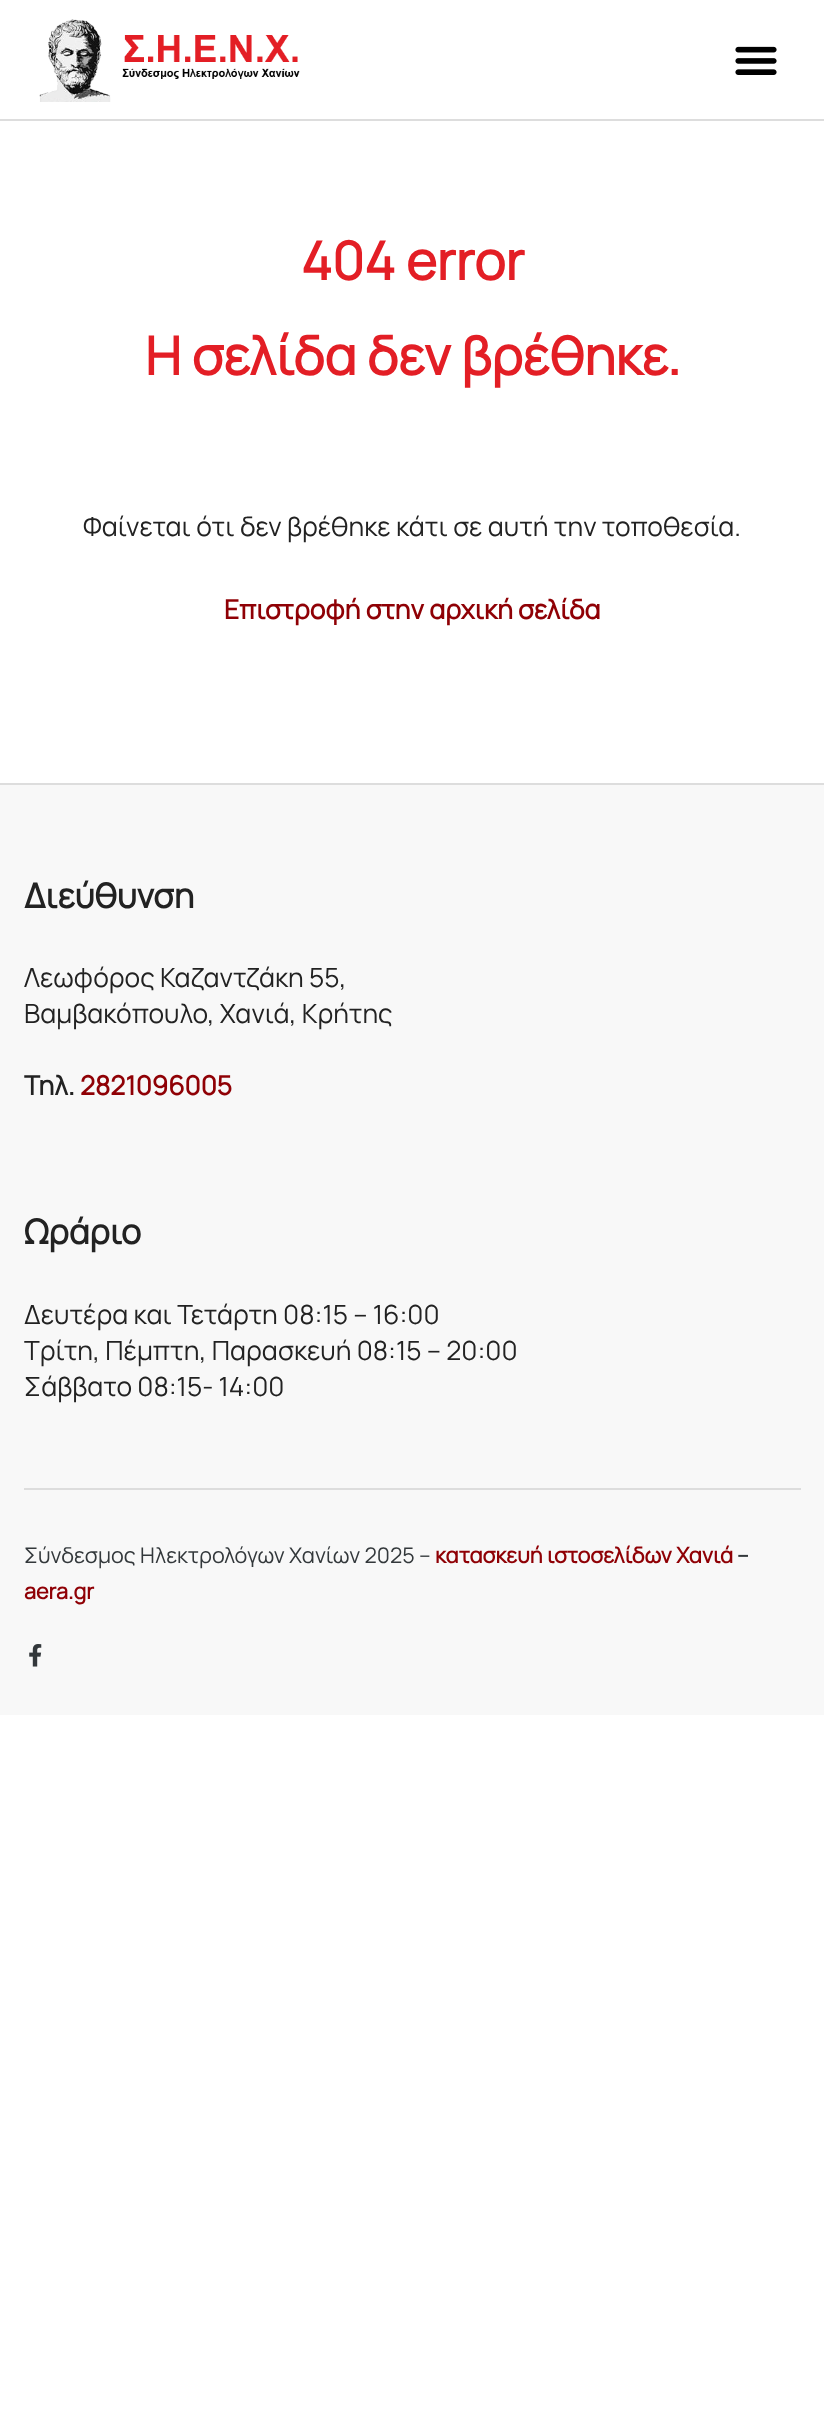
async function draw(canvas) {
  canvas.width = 824;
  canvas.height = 2419;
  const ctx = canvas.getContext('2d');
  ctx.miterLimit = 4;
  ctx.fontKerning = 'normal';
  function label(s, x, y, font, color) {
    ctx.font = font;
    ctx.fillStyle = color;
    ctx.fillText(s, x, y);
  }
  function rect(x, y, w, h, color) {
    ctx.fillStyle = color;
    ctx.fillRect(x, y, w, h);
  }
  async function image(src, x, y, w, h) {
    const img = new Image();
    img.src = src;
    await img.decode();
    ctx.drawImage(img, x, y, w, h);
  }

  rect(0, 0, 824, 2419, '#fff');
  rect(0, 119, 824, 2, '#ddd');
  await image('assets/img1.png', 39, 19, 261, 83);
  await image('assets/img2.png', 735, 46, 42, 29);
  label('404 error', 301, 280, 'bold 52.75px Manrope', '#e31e25');
  label('Η σελίδα δεν βρέθηκε.', 145, 375, 'bold 52.75px Manrope', '#e31e25');
  label('Φαίνεται ότι δεν βρέθηκε κάτι σε αυτή την τοποθεσία.', 83, 536, '26.4px Manrope', '#222');
  label('Επιστροφή στην αρχική σελίδα', 224, 619, 'bold 26.4px Manrope', '#8f0005');
  rect(0, 785, 824, 930, '#f8f8f8');
  rect(0, 783, 824, 2, '#ddd');
  rect(24, 1488, 777, 2, '#ddd');
  label('Διεύθυνση', 24, 908, 'bold 34px Manrope', '#222');
  label('Λεωφόρος Καζαντζάκη 55,', 24, 987, '26.4px Manrope', '#222');
  label('Βαμβακόπουλο, Χανιά, Κρήτης', 24, 1023, '26.4px Manrope', '#222');
  label('Τηλ.', 24, 1095, 'bold 26.4px Manrope', '#222');
  label('2821096005', 80, 1095, 'bold 26.4px Manrope', '#8f0005');
  label('Ωράριο', 24, 1244, 'bold 34px Manrope', '#222');
  label('Δευτέρα και Τετάρτη 08:15 – 16:00', 24, 1324, '26.4px Manrope', '#222');
  label('Τρίτη, Πέμπτη, Παρασκευή 08:15 – 20:00', 24, 1360, '26.4px Manrope', '#222');
  label('Σάββατο 08:15- 14:00', 24, 1396, '26.4px Manrope', '#222');
  label('Σύνδεσμος Ηλεκτρολόγων Χανίων 2025 –', 24, 1563, '21.6px Manrope', '#33383b');
  label('κατασκευή ιστοσελίδων Χανιά', 435, 1563, 'bold 21.6px Manrope', '#8f0005');
  label('–', 737, 1563, 'bold 21.6px Manrope', '#33383b');
  label('aera.gr', 24, 1599, 'bold 21.6px Manrope', '#8f0005');
  await image('assets/img3.png', 29, 1644, 13, 23);
}

draw(document.querySelector('canvas'));
